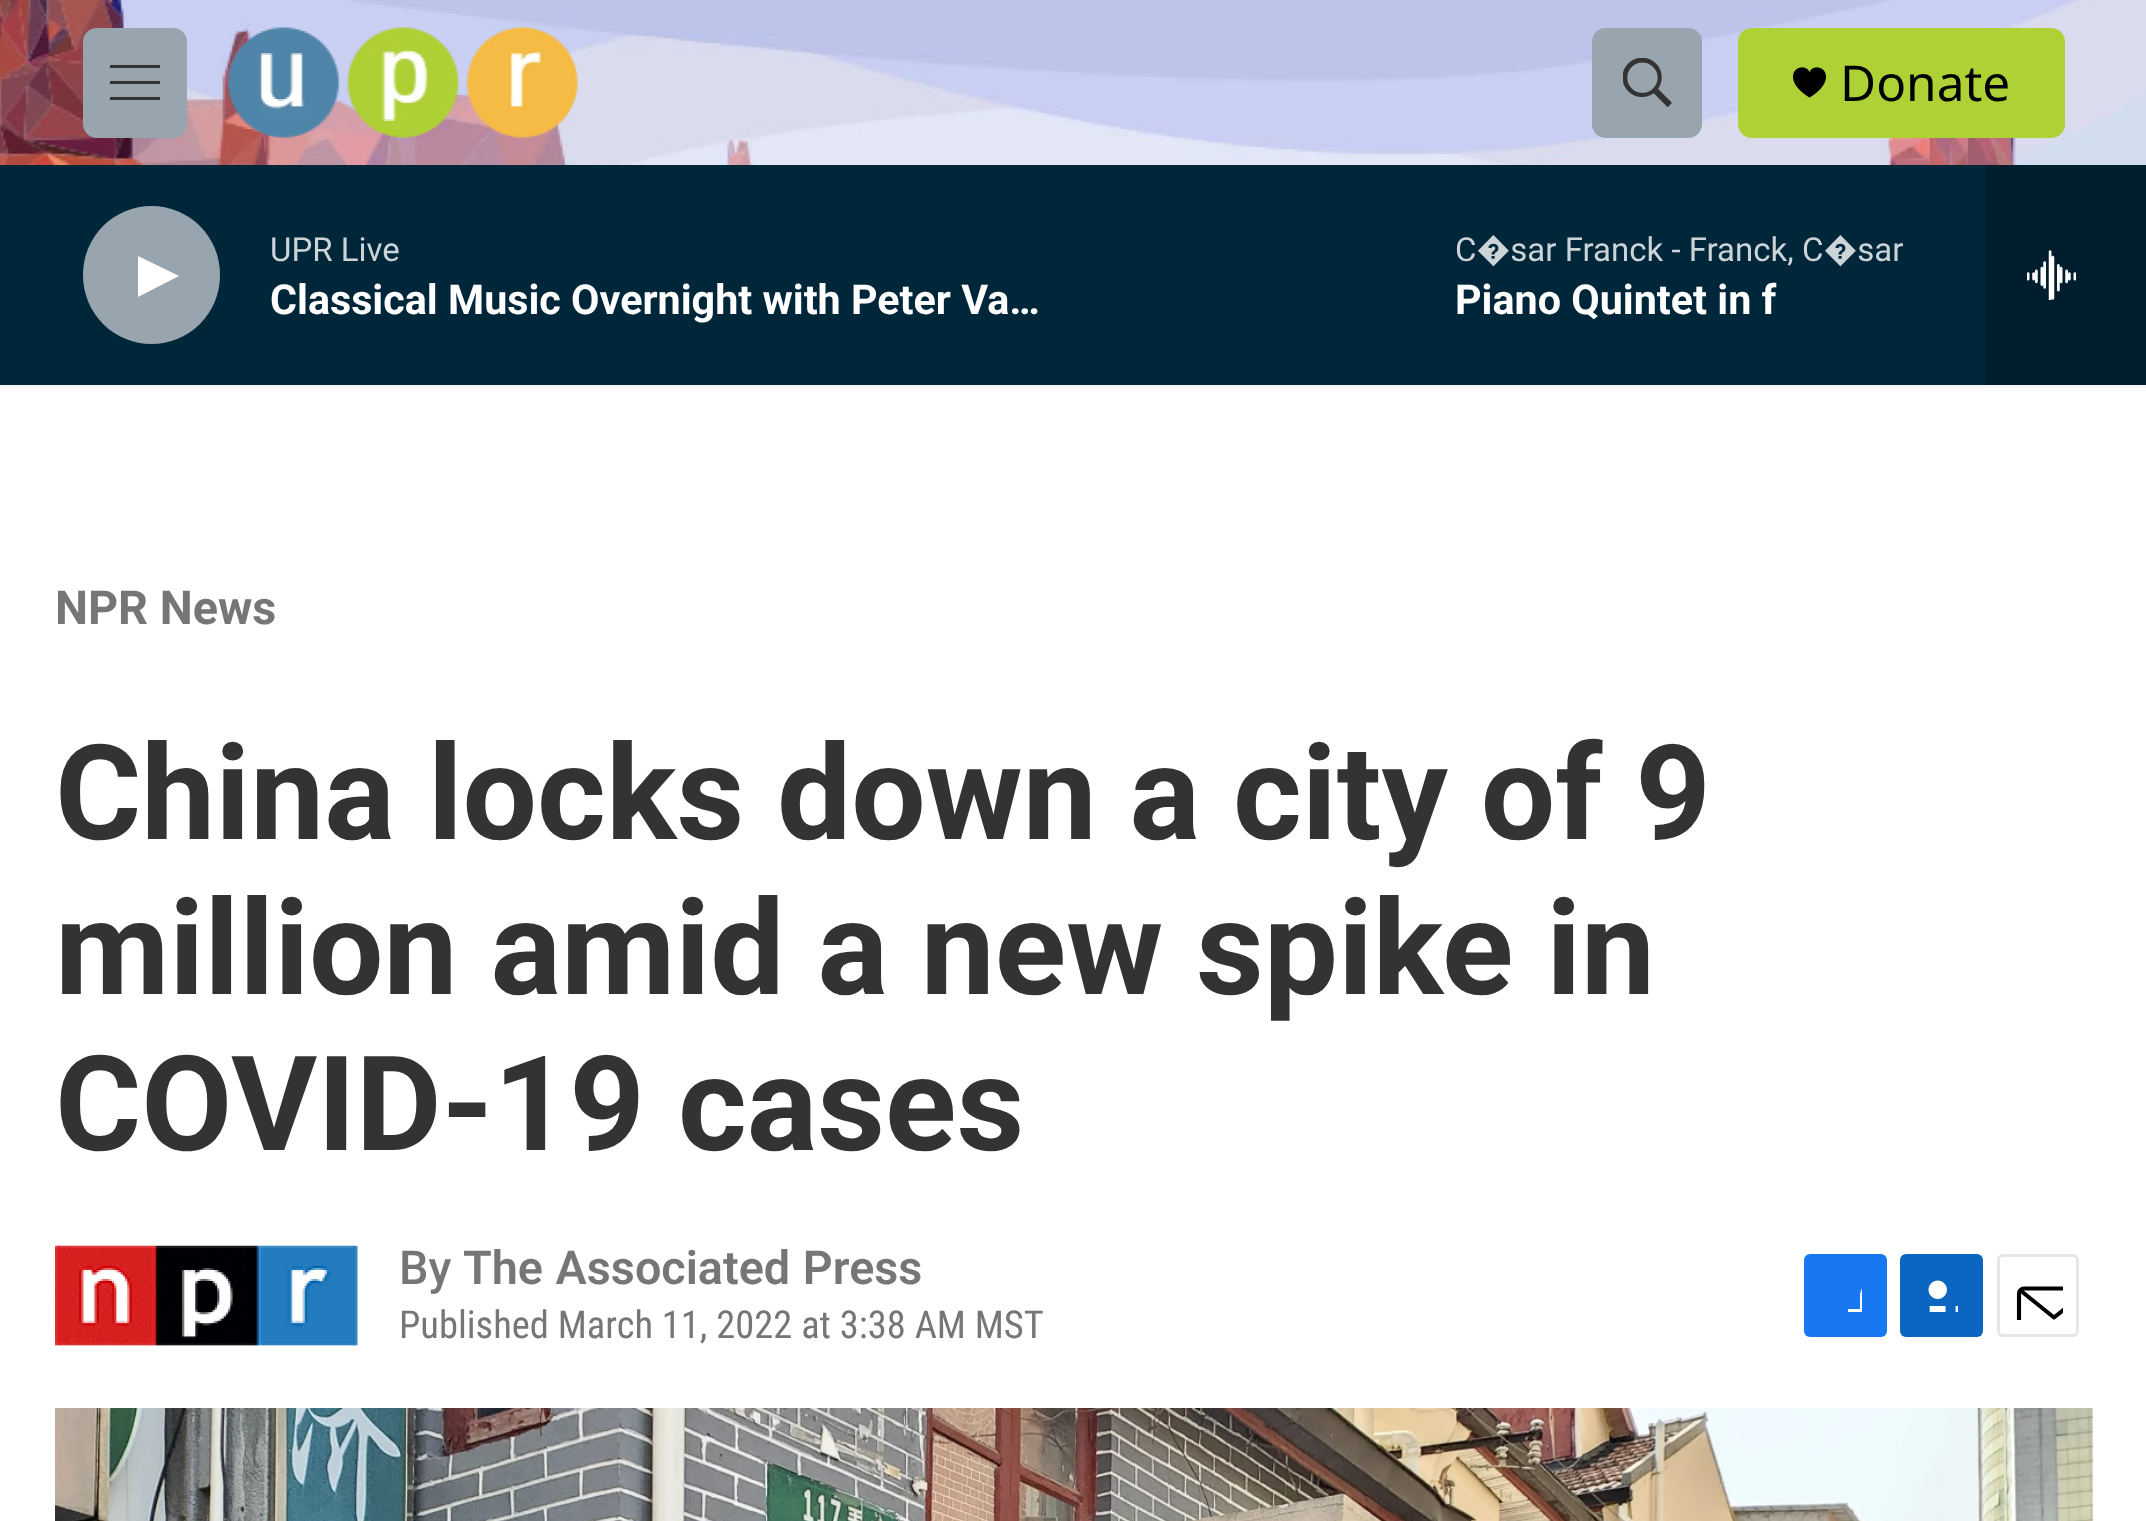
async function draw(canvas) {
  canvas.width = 2146;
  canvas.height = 1521;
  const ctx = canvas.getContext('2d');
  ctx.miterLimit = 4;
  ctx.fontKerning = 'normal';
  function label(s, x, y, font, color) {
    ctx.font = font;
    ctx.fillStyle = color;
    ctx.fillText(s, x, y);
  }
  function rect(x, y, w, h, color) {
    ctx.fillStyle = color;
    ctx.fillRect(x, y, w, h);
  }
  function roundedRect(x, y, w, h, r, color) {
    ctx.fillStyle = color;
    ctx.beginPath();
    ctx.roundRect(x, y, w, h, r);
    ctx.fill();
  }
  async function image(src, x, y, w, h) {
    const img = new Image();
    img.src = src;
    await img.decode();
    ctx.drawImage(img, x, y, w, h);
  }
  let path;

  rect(0, 0, 2146, 1521, '#fff');
  rect(0, 385, 2146, 3, '#f5f5f5');
  await image('assets/img1.png', 0, 0, 2146, 165);
  roundedRect(83, 28, 104, 110, 14, '#98a4ae');
  ctx.fillStyle = '#333';
  path = new Path2D('M110 84V81H160V84ZM110 68V65H160V68ZM110 100V97H160V100Z');
  ctx.fill(path, 'evenodd');
  await image('assets/img2.png', 228, 27, 350, 111);
  roundedRect(1592, 28, 110, 110, 14, '#98a4ae');
  await image('assets/img3.png', 1623, 58, 49, 49);
  roundedRect(1738, 28, 327, 110, 14, '#aed136');
  await image('assets/img4.png', 1793, 67, 33, 31);
  label('Donate', 1840, 101, '49.5px Noto Sans', '#000');
  rect(0, 165, 1986, 220, '#00263a');
  roundedRect(83, 206, 137, 138, 68.5, '#98a4ae');
  ctx.fillStyle = '#fff';
  path = new Path2D('M138 256L179 276L138 297Z');
  ctx.fill(path);
  label('UPR Live', 270, 261, '33px Roboto', '#ccd4d8');
  label('Classical Music Overnight with Peter Va…', 270, 314, 'bold 41.25px "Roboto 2"', '#fff');
  label('C�sar Franck - Franck, C�sar', 1455, 261, '33px Roboto', '#ccd4d8');
  label('Piano Quintet in f', 1455, 314, 'bold 41.25px "Roboto 2"', '#fff');
  rect(1986, 165, 160, 220, '#001e2e');
  await image('assets/img5.png', 2027, 250, 49, 50);
  label('NPR News', 55, 624, 'bold 46.75px Roboto', '#767676');
  label('China locks down a city of 9', 55, 839, 'bold 132px Roboto', '#333');
  label('million amid a new spike in', 55, 994, 'bold 132px Roboto', '#333');
  label('COVID-19 cases', 55, 1150, 'bold 132px Roboto', '#333');
  await image('assets/img6.png', 55, 1245, 303, 103);
  label('By', 399, 1284, '500 46.75px Roboto', '#767676');
  ctx.wordSpacing = '1px';
  label('The Associated Press', 463, 1284, '600 46.75px Roboto', '#767676');
  ctx.wordSpacing = '0px';
  label('Published March 11, 2022 at 3:38 AM MST', 399, 1338, '38.5px Roboto Condensed', '#767676');
  roundedRect(1804, 1254, 83, 83, 6, '#1778f2');
  ctx.save();
  ctx.beginPath();
  ctx.rect(1829, 1279, 33, 33);
  ctx.clip();
  ctx.fillStyle = '#fff';
  path = new Path2D('M1874 1337H1860V1323H1848V1309H1860V1294C1863 1280 1875 1279 1887 1280V1293C1872 1293 1874 1297 1874 1309H1887L1886 1323H1874Z');
  ctx.fill(path);
  ctx.restore();
  roundedRect(1900, 1254, 83, 83, 6, '#0a66c1');
  await image('assets/img7.png', 1928, 1280, 30, 32);
  ctx.beginPath();
  ctx.roundRect(1998.5, 1255.5, 79, 80, 4.5);
  ctx.strokeStyle = '#e6e6e6';
  ctx.lineWidth = 3;
  ctx.stroke();
  ctx.save();
  ctx.beginPath();
  ctx.rect(2013, 1271, 50, 49);
  ctx.clip();
  path = new Path2D('M2089.5 1331C2089.5 1333.5 2087.5 1336 2084.5 1336H2024C2021 1336 2019 1333.5 2019 1331V1293.5C2019 1291 2021 1288.5 2024 1288.5H2084.5C2087.5 1288.5 2089.5 1291 2089.5 1293.5ZM2088 1290.5L2054 1317.5L2020.5 1290.5');
  ctx.strokeStyle = '#000';
  ctx.lineWidth = 4.1;
  ctx.lineCap = 'round';
  ctx.lineJoin = 'round';
  ctx.stroke(path);
  ctx.restore();
  await image('assets/img8.png', 55, 1408, 2038, 113);
}

draw(document.querySelector('canvas'));
